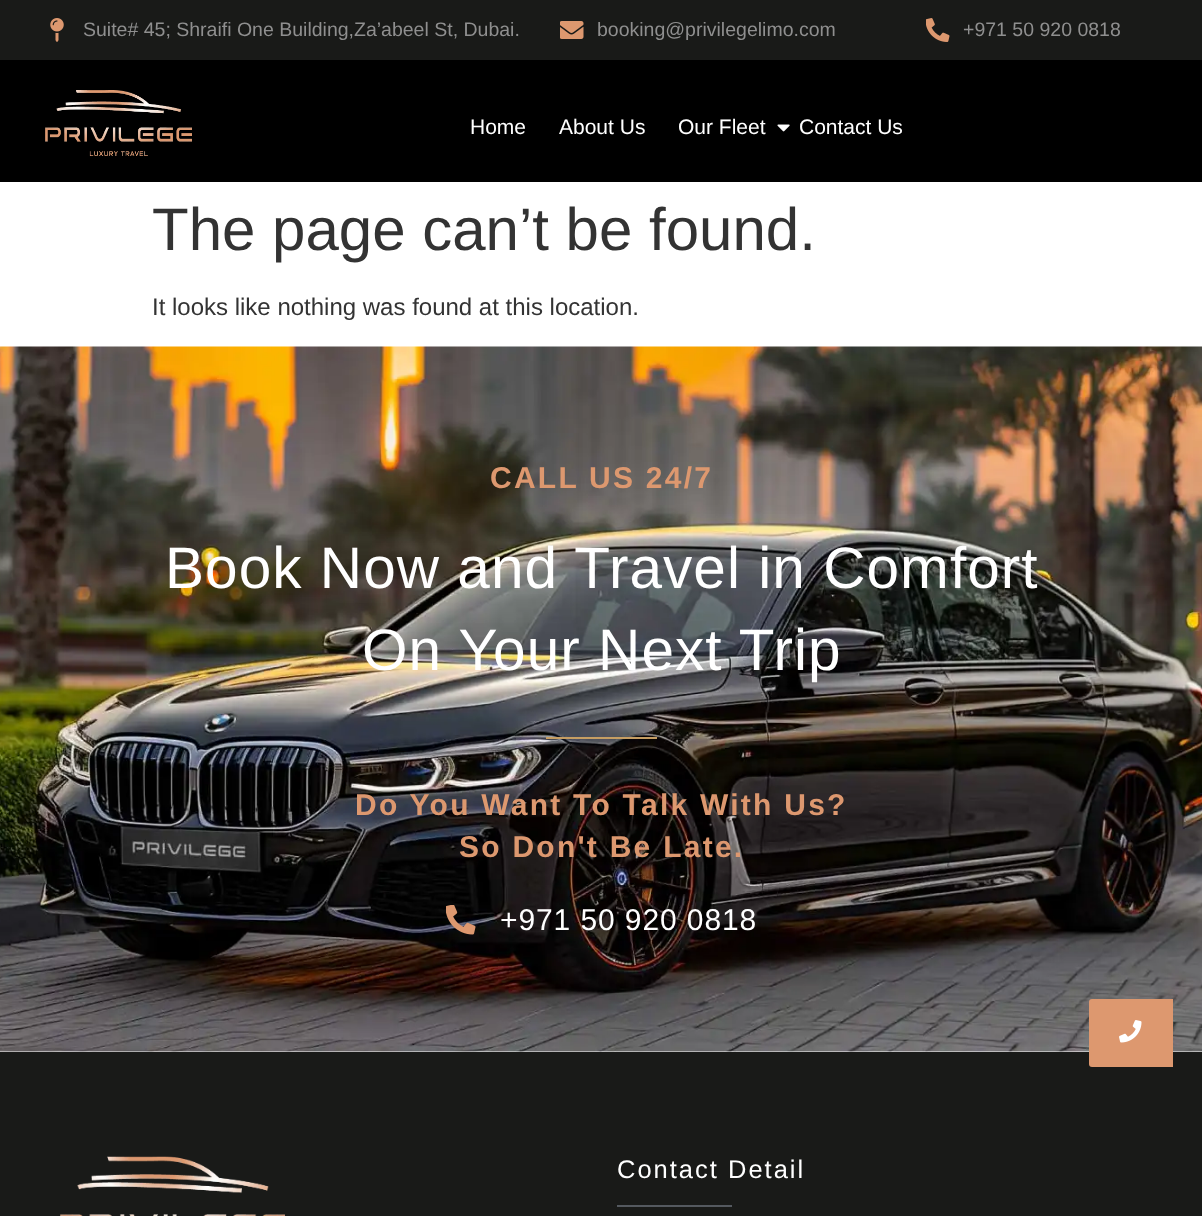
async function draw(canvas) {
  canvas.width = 1202;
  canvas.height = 1216;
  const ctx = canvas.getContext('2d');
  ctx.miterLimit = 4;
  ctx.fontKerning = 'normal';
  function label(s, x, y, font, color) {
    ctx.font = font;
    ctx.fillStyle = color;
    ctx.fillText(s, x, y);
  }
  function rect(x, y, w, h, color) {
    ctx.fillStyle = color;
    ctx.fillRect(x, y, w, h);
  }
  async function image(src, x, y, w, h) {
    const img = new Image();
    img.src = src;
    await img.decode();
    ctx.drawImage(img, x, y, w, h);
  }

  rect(0, 0, 1202, 1216, '#fff');
  rect(0, 0, 1202, 60, '#191a18');
  await image('assets/img1.png', 50, 18, 14, 24);
  label('Suite# 45; Shraifi One Building,Za’abeel St, Dubai.', 83, 36, '19.5px Liberation Sans', '#8f8f8f');
  await image('assets/img2.png', 560, 21, 24, 18);
  label('booking@privilegelimo.com', 597, 36, '19.5px Liberation Sans', '#8f8f8f');
  await image('assets/img3.png', 926, 18, 24, 24);
  label('+971 50 920 0818', 963, 36, '19.5px Liberation Sans', '#8f8f8f');
  rect(0, 60, 1202, 122, '#000');
  await image('assets/img4.png', 45, 90, 147, 66);
  label('Home', 470, 134, '21px Liberation Sans', '#fff');
  label('About Us', 559, 134, '21px Liberation Sans', '#fff');
  label('Our Fleet', 678, 134, '21px Liberation Sans', '#fff');
  await image('assets/img5.png', 777, 124, 13, 8);
  label('Contact Us', 799, 134, '21px Liberation Sans', '#fff');
  label('The page can’t be found.', 152, 250, '60px Liberation Sans', '#333');
  label('It looks like nothing was found at this location.', 152, 315, '24px Liberation Sans', '#333');
  await image('assets/img6.png', 0, 346, 1202, 706);
  ctx.letterSpacing = '2.25px';
  label('CALL US 24/7', 490, 488, 'bold 30px Liberation Sans', '#dd986f');
  ctx.letterSpacing = '1.05px';
  label('Book Now and Travel in Comfort', 165, 588, '58.5px Liberation Sans', '#fff');
  label('On Your Next Trip', 362, 670, '58.5px Liberation Sans', '#fff');
  rect(546, 737, 111, 2, '#c69e63');
  ctx.letterSpacing = '2.25px';
  label('Do You Want To Talk With Us?', 355, 815, 'bold 30px Liberation Sans', '#dd986f');
  label('So Don\'t Be Late.', 459, 857, 'bold 30px Liberation Sans', '#dd986f');
  await image('assets/img7.png', 446, 905, 30, 30);
  ctx.letterSpacing = '0.9px';
  label('+971 50 920 0818', 500, 930, '30px Liberation Sans', '#fff');
  rect(0, 1052, 1202, 164, '#191a18');
  ctx.fillStyle = '#dd986f';
  ctx.beginPath();
  ctx.roundRect(1089, 999, 84, 68, [3, 0, 0, 3]);
  ctx.fill();
  await image('assets/img8.png', 1119, 1020, 23, 23);
  await image('assets/img9.png', 60, 1156, 225, 60);
  ctx.letterSpacing = '2px';
  label('Contact Detail', 617, 1178, '25.5px Liberation Sans', '#fff');
  rect(617, 1205, 115, 2, '#54595f');
}

draw(document.querySelector('canvas'));
